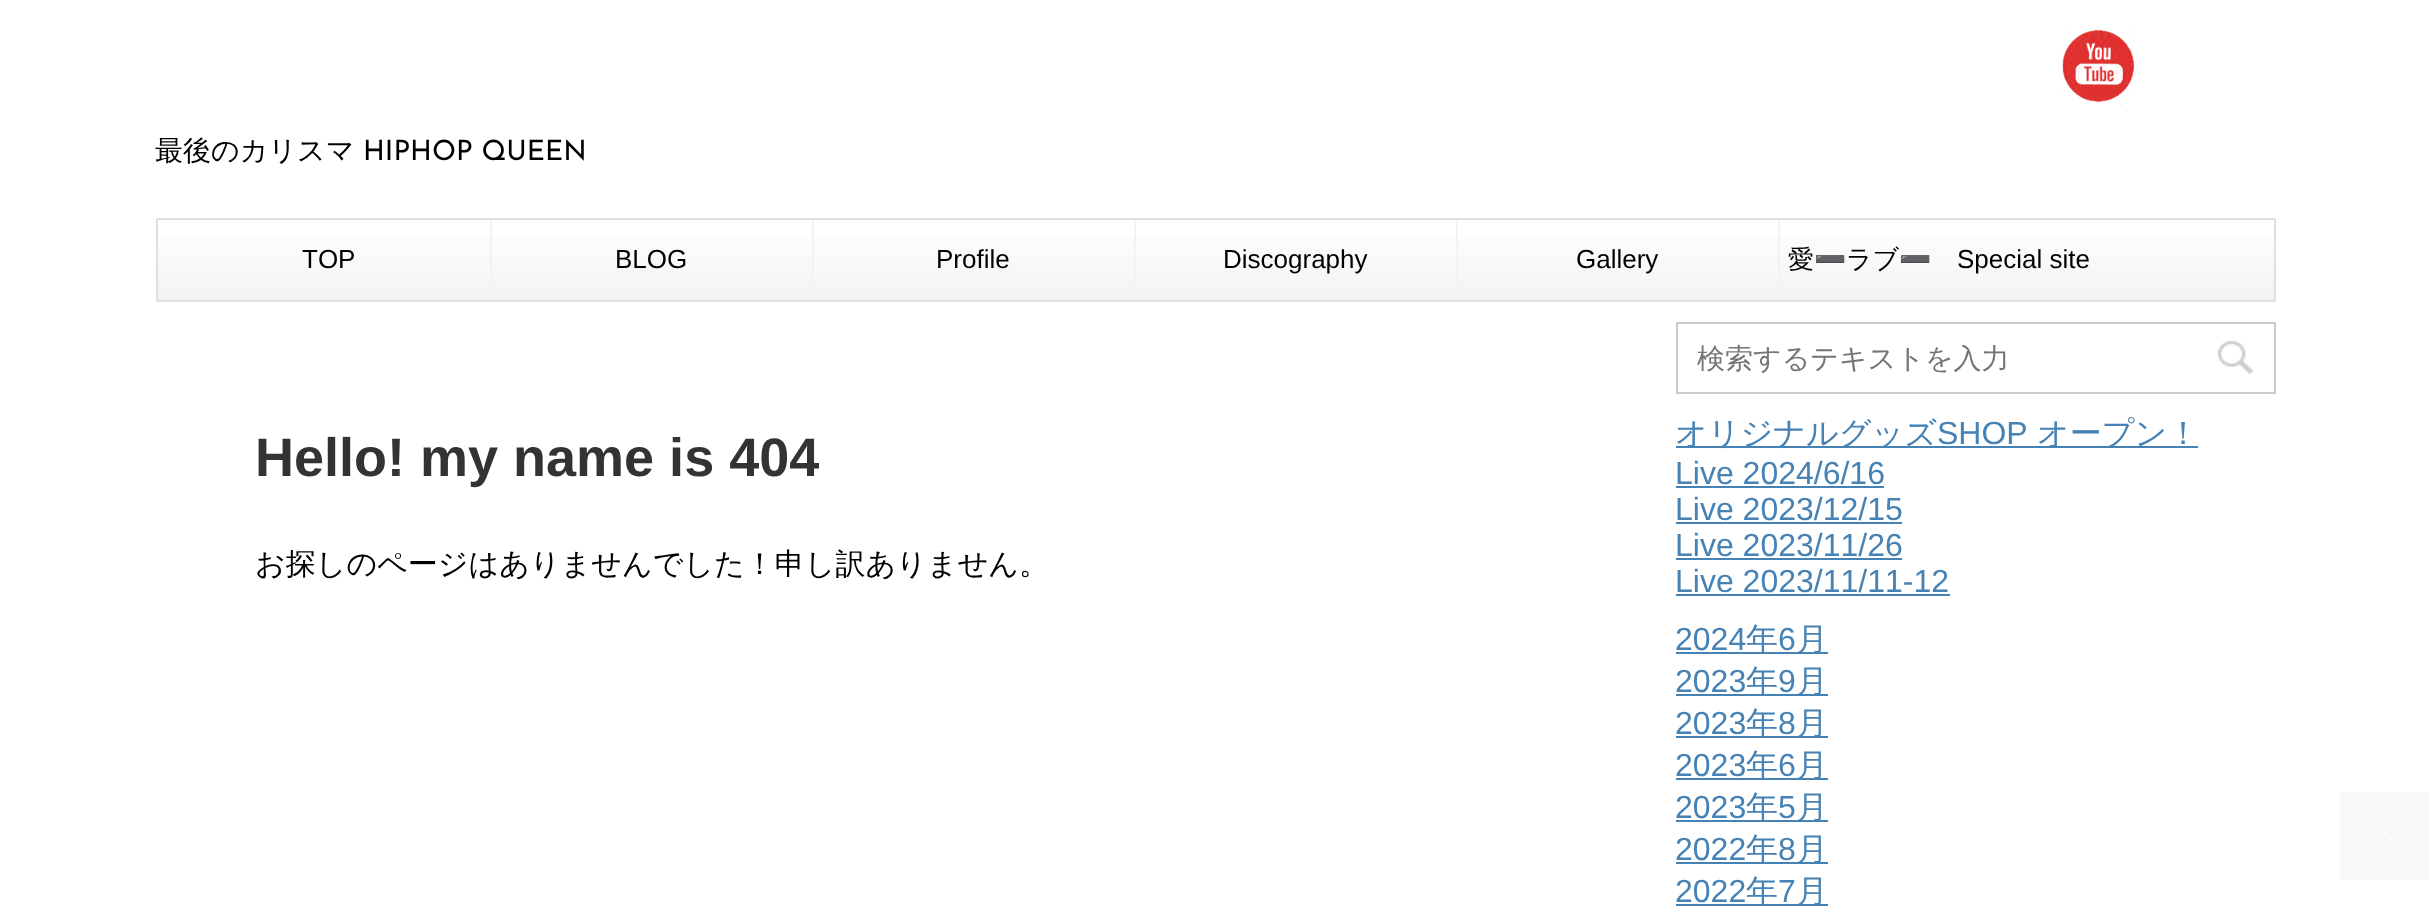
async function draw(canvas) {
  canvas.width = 2429;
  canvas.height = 920;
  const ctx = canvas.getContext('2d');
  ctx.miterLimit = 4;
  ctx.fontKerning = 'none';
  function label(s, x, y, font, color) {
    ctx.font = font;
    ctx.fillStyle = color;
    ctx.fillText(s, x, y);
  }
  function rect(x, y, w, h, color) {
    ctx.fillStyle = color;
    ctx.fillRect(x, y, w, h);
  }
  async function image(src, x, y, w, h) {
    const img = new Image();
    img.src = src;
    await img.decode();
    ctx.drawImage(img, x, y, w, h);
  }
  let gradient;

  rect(0, 0, 2429, 920, '#fff');
  await image('assets/img1.png', 2061, 30, 73, 76);
  label('最後のカリスマ', 155, 160, '500 28px WenQuanYi Zen Hei', '#000');
  label('HIPHOP QUEEN', 363, 160, '28px Josefin Sans', '#000');
  gradient = ctx.createLinearGradient(1216, 220, 1216, 300);
  gradient.addColorStop(0, '#fff');
  gradient.addColorStop(1, '#f3f3f3');
  ctx.fillStyle = gradient;
  ctx.fillRect(158, 237, 2116, 63);
  ctx.beginPath();
  ctx.roundRect(157, 219, 2118, 82, 1);
  ctx.strokeStyle = '#e0dede';
  ctx.lineWidth = 2;
  ctx.stroke();
  rect(490, 220, 2, 63, '#f3f3f3');
  label('TOP', 302, 268, '26px Liberation Sans', '#000');
  rect(812, 220, 2, 63, '#f3f3f3');
  label('BLOG', 615, 268, '26px Liberation Sans', '#000');
  rect(1134, 220, 2, 63, '#f3f3f3');
  label('Profile', 936, 268, '26px Liberation Sans', '#000');
  rect(1456, 220, 2, 63, '#f3f3f3');
  label('Discography', 1223, 268, '26px Liberation Sans', '#000');
  rect(1778, 220, 2, 63, '#f3f3f3');
  label('Gallery', 1576, 268, '26px Liberation Sans', '#000');
  label('愛', 1788, 268, '500 26px WenQuanYi Zen Hei', '#000');
  label('➖', 1814, 268, '26px Noto Color Emoji', '#000');
  label('ラブ', 1846, 268, '500 26px WenQuanYi Zen Hei', '#000');
  label('➖', 1899, 268, '26px Noto Color Emoji', '#000');
  label('Special site', 1957, 268, '26px Liberation Sans', '#000');
  label('Hello! my name is 404', 255, 476, 'bold 54px Liberation Sans', '#333');
  label('お探しのページはありませんでした！申し訳ありません。', 255, 574, '500 30px WenQuanYi Zen Hei', '#000');
  ctx.strokeStyle = '#ccc';
  ctx.strokeRect(1677, 323, 598, 70);
  label('検索するテキストを入力', 1697, 368, '500 28px WenQuanYi Zen Hei', '#757575');
  await image('assets/img2.png', 2217, 340, 37, 35);
  rect(1676, 446, 522, 2, '#4682b4');
  label('オリジナルグッズ', 1675, 444, '500 32px WenQuanYi Zen Hei', '#4682b4');
  label('SHOP', 1937, 444, '32px Liberation Sans', '#4682b4');
  label('オープン！', 2037, 444, '500 32px WenQuanYi Zen Hei', '#4682b4');
  label('Live 2024/6/16', 1675, 484, '32px Liberation Sans', '#4682b4');
  rect(1676, 486, 208, 2, '#4682b4');
  label('Live 2023/12/15', 1675, 520, '32px Liberation Sans', '#4682b4');
  rect(1676, 522, 226, 2, '#4682b4');
  label('Live 2023/11/26', 1675, 556, '32px Liberation Sans', '#4682b4');
  rect(1676, 558, 226, 2, '#4682b4');
  label('Live 2023/11/11-12', 1675, 592, '32px Liberation Sans', '#4682b4');
  rect(1676, 594, 274, 2, '#4682b4');
  label('2024', 1675, 650, '32px Liberation Sans', '#4682b4');
  rect(1676, 652, 152, 2, '#4682b4');
  label('年', 1746, 650, '500 32px WenQuanYi Zen Hei', '#4682b4');
  label('6', 1778, 650, '32px Liberation Sans', '#4682b4');
  label('月', 1796, 650, '500 32px WenQuanYi Zen Hei', '#4682b4');
  label('2023', 1675, 692, '32px Liberation Sans', '#4682b4');
  rect(1676, 694, 152, 2, '#4682b4');
  label('年', 1746, 692, '500 32px WenQuanYi Zen Hei', '#4682b4');
  label('9', 1778, 692, '32px Liberation Sans', '#4682b4');
  label('月', 1796, 692, '500 32px WenQuanYi Zen Hei', '#4682b4');
  label('2023', 1675, 734, '32px Liberation Sans', '#4682b4');
  rect(1676, 736, 152, 2, '#4682b4');
  label('年', 1746, 734, '500 32px WenQuanYi Zen Hei', '#4682b4');
  label('8', 1778, 734, '32px Liberation Sans', '#4682b4');
  label('月', 1796, 734, '500 32px WenQuanYi Zen Hei', '#4682b4');
  label('2023', 1675, 776, '32px Liberation Sans', '#4682b4');
  rect(1676, 778, 152, 2, '#4682b4');
  label('年', 1746, 776, '500 32px WenQuanYi Zen Hei', '#4682b4');
  label('6', 1778, 776, '32px Liberation Sans', '#4682b4');
  label('月', 1796, 776, '500 32px WenQuanYi Zen Hei', '#4682b4');
  label('2023', 1675, 818, '32px Liberation Sans', '#4682b4');
  rect(1676, 820, 152, 2, '#4682b4');
  label('年', 1746, 818, '500 32px WenQuanYi Zen Hei', '#4682b4');
  label('5', 1778, 818, '32px Liberation Sans', '#4682b4');
  label('月', 1796, 818, '500 32px WenQuanYi Zen Hei', '#4682b4');
  label('2022', 1675, 860, '32px Liberation Sans', '#4682b4');
  rect(1676, 862, 152, 2, '#4682b4');
  label('年', 1746, 860, '500 32px WenQuanYi Zen Hei', '#4682b4');
  label('8', 1778, 860, '32px Liberation Sans', '#4682b4');
  label('月', 1796, 860, '500 32px WenQuanYi Zen Hei', '#4682b4');
  label('2022', 1675, 902, '32px Liberation Sans', '#4682b4');
  rect(1676, 904, 152, 2, '#4682b4');
  label('年', 1746, 902, '500 32px WenQuanYi Zen Hei', '#4682b4');
  label('7', 1778, 902, '32px Liberation Sans', '#4682b4');
  label('月', 1796, 902, '500 32px WenQuanYi Zen Hei', '#4682b4');
  rect(2340, 792, 89, 88, '#f8f8f8');
  await image('assets/img3.png', 2374, 832, 21, 11);
}

draw(document.querySelector('canvas'));
